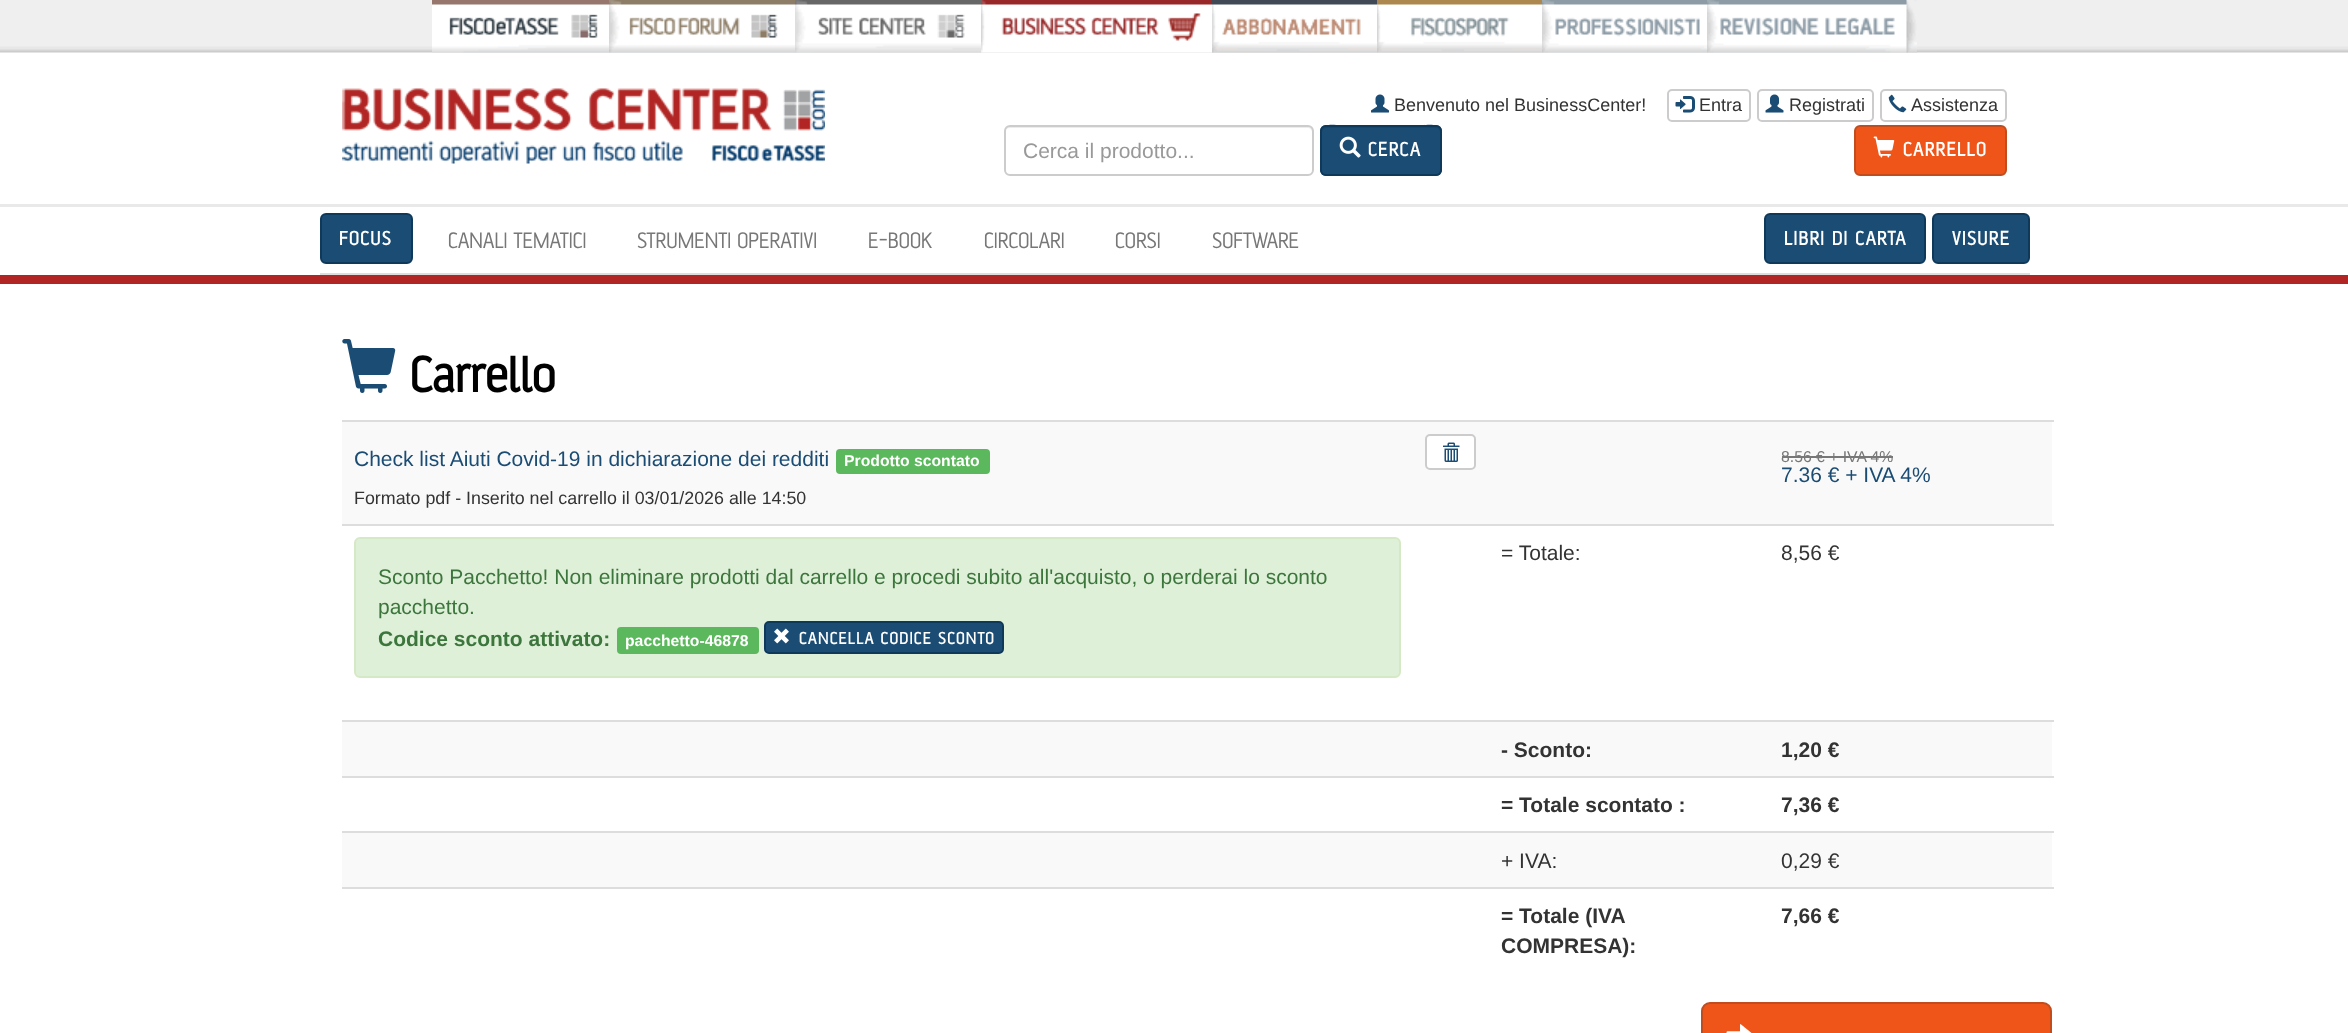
async function draw(canvas) {
  canvas.width = 2348;
  canvas.height = 1033;
  const ctx = canvas.getContext('2d');
  ctx.miterLimit = 4;
  ctx.fontKerning = 'normal';
  function label(s, x, y, font, color) {
    ctx.font = font;
    ctx.fillStyle = color;
    ctx.fillText(s, x, y);
  }
  function rect(x, y, w, h, color) {
    ctx.fillStyle = color;
    ctx.fillRect(x, y, w, h);
  }
  function roundedRect(x, y, w, h, r, color) {
    ctx.fillStyle = color;
    ctx.beginPath();
    ctx.roundRect(x, y, w, h, r);
    ctx.fill();
  }
  async function image(src, x, y, w, h) {
    const img = new Image();
    img.src = src;
    await img.decode();
    ctx.drawImage(img, x, y, w, h);
  }
  let path;

  rect(0, 0, 2348, 1033, '#fff');
  await image('assets/img1.png', 0, 0, 2348, 53);
  await image('assets/img2.png', 432, 0, 177, 53);
  await image('assets/img3.png', 609, 0, 186, 53);
  await image('assets/img4.png', 795, 0, 186, 53);
  await image('assets/img5.png', 981, 0, 231, 53);
  await image('assets/img6.png', 1212, 0, 165, 53);
  await image('assets/img7.png', 1377, 0, 165, 53);
  await image('assets/img8.png', 1542, 0, 165, 53);
  await image('assets/img9.png', 1707, 0, 210, 53);
  await image('assets/img10.png', 342, 88, 483, 76);
  await image('assets/img11.png', 1371, 94, 18, 19);
  label('Benvenuto nel BusinessCenter!', 1394, 111, '18px Liberation Sans', '#333');
  ctx.beginPath();
  ctx.roundRect(1668, 90, 82, 31, 4);
  ctx.strokeStyle = '#ccc';
  ctx.lineWidth = 2;
  ctx.stroke();
  await image('assets/img12.png', 1675, 96, 20, 17);
  label('Entra', 1699, 111, '18px Liberation Sans', '#333');
  ctx.beginPath();
  ctx.roundRect(1758, 90, 115, 31, 4);
  ctx.stroke();
  await image('assets/img13.png', 1765, 94, 19, 19);
  label('Registrati', 1789, 111, '18px Liberation Sans', '#333');
  ctx.beginPath();
  ctx.roundRect(1881, 90, 125, 31, 4);
  ctx.stroke();
  await image('assets/img14.png', 1888, 94, 19, 19);
  label('Assistenza', 1911, 111, '18px Liberation Sans', '#333');
  ctx.fillStyle = '#ececec';
  path = new Path2D('M1010 128H1308C1310 128 1312 130 1312 132V172C1313 171 1313 170 1313 169V131C1313 128 1311 126 1308 126H1010C1007 126 1005 128 1005 131V132C1005 130 1007 128 1010 128Z');
  ctx.fill(path);
  ctx.beginPath();
  ctx.roundRect(1005, 126, 308, 49, 5);
  ctx.stroke();
  label('Cerca il prodotto...', 1023, 158, '21px Liberation Sans', '#999');
  roundedRect(1320, 125, 122, 51, 6, '#1a4c74');
  ctx.fillStyle = '#18466b';
  path = new Path2D('M1326 128H1436C1438 128 1440 130 1440 132C1440 121 1422 126 1417 126H1345C1340 126 1322 121 1322 132C1322 130 1324 128 1326 128Z');
  ctx.fill(path);
  ctx.beginPath();
  ctx.roundRect(1321, 126, 120, 49, 5);
  ctx.strokeStyle = '#0f395b';
  ctx.stroke();
  await image('assets/img15.png', 1339, 136, 22, 22);
  ctx.letterSpacing = '1.5px';
  label('CERCA', 1368, 156, 'bold 21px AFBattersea', '#fff');
  ctx.fillStyle = '#ef5519';
  ctx.beginPath();
  ctx.roundRect(1855, 126, 151, 49, 5);
  ctx.fill();
  ctx.strokeStyle = '#c14c1e';
  ctx.stroke();
  await image('assets/img16.png', 1873, 136, 22, 22);
  label('CARRELLO', 1903, 156, 'bold 21px AFBattersea', '#fff');
  rect(0, 204, 2348, 3, '#e9e9e9');
  rect(320, 273, 1710, 2, '#ddd');
  ctx.fillStyle = '#1a4c74';
  ctx.beginPath();
  ctx.roundRect(321, 214, 91, 49, 5);
  ctx.fill();
  ctx.strokeStyle = '#0f395b';
  ctx.stroke();
  label('FOCUS', 339, 245, 'bold 21px AFBattersea', '#fff');
  ctx.letterSpacing = '0px';
  label('CANALI TEMATICI', 448, 248, '500 24px AFBattersea', '#777');
  label('STRUMENTI OPERATIVI', 637, 248, '500 24px AFBattersea', '#777');
  label('E-BOOK', 868, 248, '500 24px AFBattersea', '#777');
  label('CIRCOLARI', 984, 248, '500 24px AFBattersea', '#777');
  label('CORSI', 1115, 248, '500 24px AFBattersea', '#777');
  label('SOFTWARE', 1212, 248, '500 24px AFBattersea', '#777');
  ctx.fillStyle = '#1a4c74';
  ctx.beginPath();
  ctx.roundRect(1765, 214, 160, 49, 5);
  ctx.fill();
  ctx.stroke();
  ctx.letterSpacing = '1.5px';
  label('LIBRI DI CARTA', 1784, 245, 'bold 21px AFBattersea', '#fff');
  ctx.fillStyle = '#1a4c74';
  ctx.beginPath();
  ctx.roundRect(1933, 214, 96, 49, 5);
  ctx.fill();
  ctx.stroke();
  label('VISURE', 1952, 245, 'bold 21px AFBattersea', '#fff');
  rect(0, 275, 2348, 9, '#b12624');
  await image('assets/img17.png', 342, 339, 54, 54);
  ctx.letterSpacing = '0px';
  label('Carrello', 410, 392, 'bold 54px AFBattersea', '#000');
  rect(342, 422, 1710, 102, '#f9f9f9');
  label('Check list Aiuti Covid-19 in dichiarazione dei redditi', 354, 466, '21px Liberation Sans', '#1b4c74');
  roundedRect(836, 449, 154, 25, 4, '#5cb85c');
  label('Prodotto scontato', 844, 466, 'bold 15.75px Liberation Sans', '#fff');
  label('Formato pdf - Inserito nel carrello il 03/01/2026 alle 14:50', 354, 504, '17.85px Liberation Sans', '#333');
  ctx.fillStyle = '#fff';
  ctx.beginPath();
  ctx.roundRect(1426, 435, 49, 34, 4);
  ctx.fill();
  ctx.strokeStyle = '#ccc';
  ctx.stroke();
  await image('assets/img18.png', 1443, 442, 17, 20);
  rect(342, 420, 1712, 2, '#ddd');
  label('8.56', 1781, 462, '15.75px Liberation Sans', '#777');
  rect(1782, 456, 35, 2, '#777');
  label('€ + IVA 4%', 1816, 462, '15.75px Liberation Sans', '#777');
  rect(1817, 456, 76, 2, '#777');
  label('7.36 € + IVA 4%', 1781, 482, '21px Liberation Sans', '#1b4c74');
  label('= Totale:', 1501, 560, '21px Liberation Sans', '#333');
  rect(342, 524, 1712, 2, '#ddd');
  label('8,56 €', 1781, 560, '21px Liberation Sans', '#333');
  ctx.fillStyle = '#dff0d8';
  ctx.beginPath();
  ctx.roundRect(355, 538, 1045, 139, 5);
  ctx.fill();
  ctx.strokeStyle = '#d6e9c6';
  ctx.stroke();
  label('Sconto Pacchetto! Non eliminare prodotti dal carrello e procedi subito all\'acquisto, o perderai lo sconto', 378, 584, '21px Liberation Sans', '#3c763d');
  label('pacchetto.', 378, 614, '21px Liberation Sans', '#3c763d');
  label('Codice sconto attivato:', 378, 646, 'bold 21px Liberation Sans', '#3c763d');
  roundedRect(617, 627, 142, 27, 4, '#5cb85c');
  label('pacchetto-46878', 625, 646, 'bold 15.75px Liberation Sans', '#fff');
  ctx.fillStyle = '#1a4c74';
  ctx.beginPath();
  ctx.roundRect(765, 622, 238, 31, 4);
  ctx.fill();
  ctx.strokeStyle = '#0f395b';
  ctx.stroke();
  await image('assets/img19.png', 774, 628, 15, 16);
  ctx.letterSpacing = '1.5px';
  label('CANCELLA CODICE SCONTO', 799, 644, 'bold 18px AFBattersea', '#fff');
  rect(342, 722, 1710, 54, '#f9f9f9');
  ctx.letterSpacing = '0px';
  label('- Sconto:', 1501, 757, 'bold 21px Liberation Sans', '#333');
  rect(342, 720, 1712, 2, '#ddd');
  label('1,20 €', 1781, 757, 'bold 21px Liberation Sans', '#333');
  label('= Totale scontato :', 1501, 812, 'bold 21px Liberation Sans', '#333');
  rect(342, 776, 1712, 2, '#ddd');
  label('7,36 €', 1781, 812, 'bold 21px Liberation Sans', '#333');
  rect(342, 833, 1710, 54, '#f9f9f9');
  label('+ IVA:', 1501, 868, '21px Liberation Sans', '#333');
  rect(342, 831, 1712, 2, '#ddd');
  label('0,29 €', 1781, 868, '21px Liberation Sans', '#333');
  label('= Totale (IVA', 1501, 923, 'bold 21px Liberation Sans', '#333');
  label('COMPRESA):', 1501, 953, 'bold 21px Liberation Sans', '#333');
  rect(342, 887, 1712, 2, '#ddd');
  label('7,66 €', 1781, 923, 'bold 21px Liberation Sans', '#333');
  ctx.fillStyle = '#ef5519';
  ctx.beginPath();
  ctx.roundRect(1702, 1003, 349, 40, 8);
  ctx.fill();
  ctx.strokeStyle = '#c14c1e';
  ctx.stroke();
  await image('assets/img20.png', 1726, 1024, 26, 9);
}

draw(document.querySelector('canvas'));
